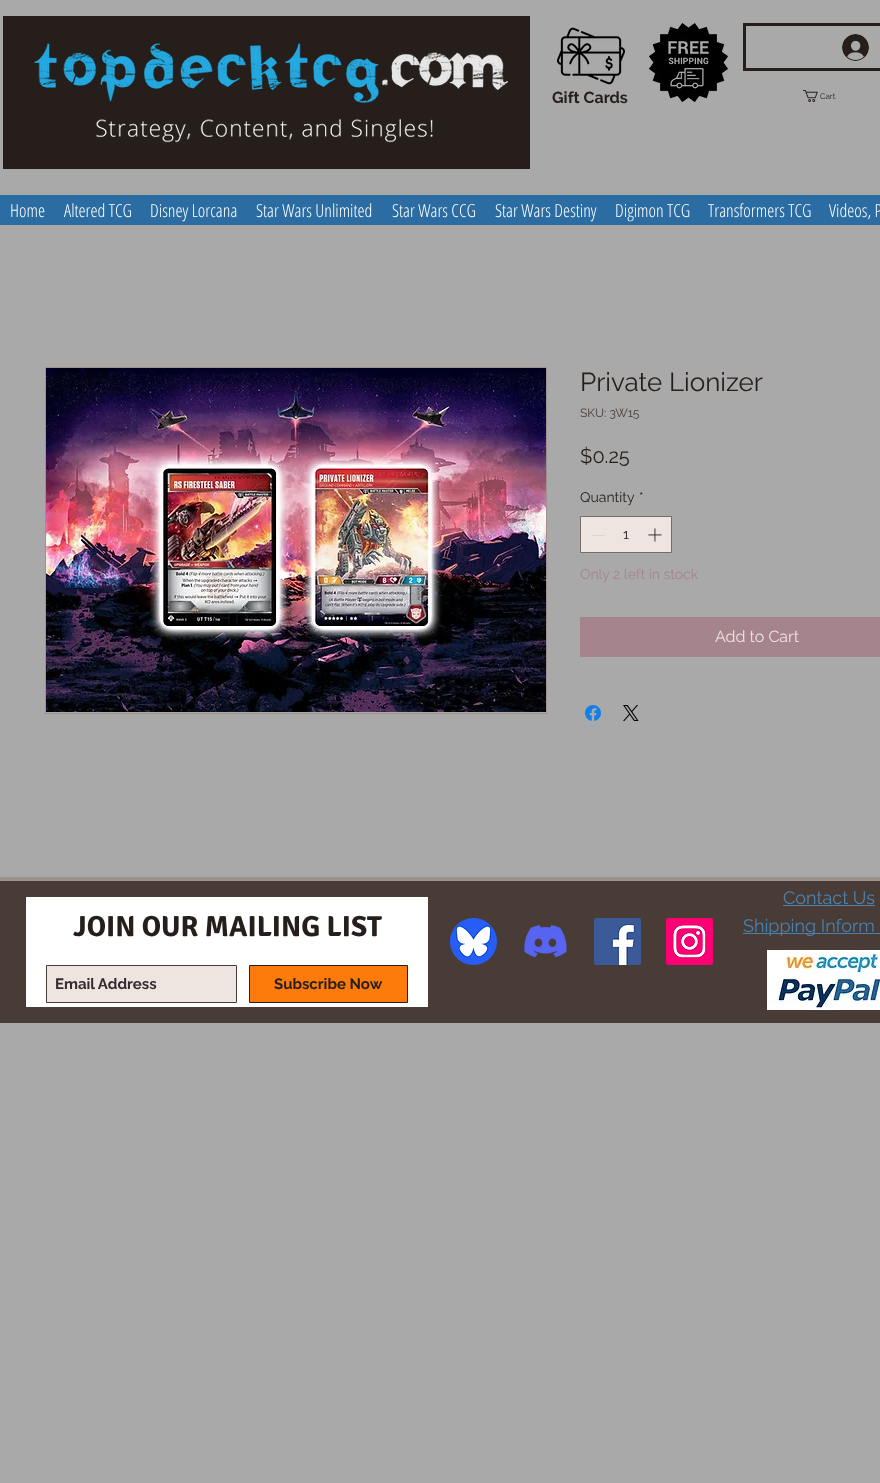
async function draw(canvas) {
  canvas.width = 880;
  canvas.height = 1483;
  const ctx = canvas.getContext('2d');
  ctx.miterLimit = 4;
  ctx.fontKerning = 'normal';
  function label(s, x, y, font, color) {
    ctx.font = font;
    ctx.fillStyle = color;
    ctx.fillText(s, x, y);
  }
  function rect(x, y, w, h, color) {
    ctx.fillStyle = color;
    ctx.fillRect(x, y, w, h);
  }
  async function image(src, x, y, w, h) {
    const img = new Image();
    img.src = src;
    await img.decode();
    ctx.drawImage(img, x, y, w, h);
  }

  rect(0, 0, 880, 1483, '#a9a9a9');
  rect(3, 16, 527, 153, '#251e1b');
  await image('assets/img1.png', 34, 43, 474, 61);
  await image('assets/img2.png', 96, 118, 337, 26);
  await image('assets/img3.png', 557, 27, 68, 58);
  await image('assets/img4.png', 649, 23, 79, 79);
  ctx.strokeStyle = '#251e1b';
  ctx.lineWidth = 3;
  ctx.strokeRect(744.5, 24.5, 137, 45);
  await image('assets/img5.png', 842, 34, 27, 27);
  label('Gift Cards', 552, 103, 'bold 16px Raleway', '#251e1b');
  await image('assets/img6.png', 803, 90, 15, 12);
  label('Cart', 820, 99, '8px Raleway', '#251e1b');
  rect(0, 195, 880, 30, '#2b6ca3');
  label('Home', 10, 217, '300 18px Open Sans Condensed', '#fff');
  label('Altered TCG', 64, 217, '300 18px Open Sans Condensed', '#fff');
  label('Disney Lorcana', 150, 217, '300 18px Open Sans Condensed', '#fff');
  label('Star Wars Unlimited', 256, 217, '300 18px Open Sans Condensed', '#fff');
  label('Star Wars CCG', 392, 217, '300 18px Open Sans Condensed', '#fff');
  label('Star Wars Destiny', 495, 217, '300 18px Open Sans Condensed', '#fff');
  label('Digimon TCG', 615, 217, '300 18px Open Sans Condensed', '#fff');
  label('Transformers TCG', 708, 217, '300 18px Open Sans Condensed', '#fff');
  label('Videos, P', 829, 217, '300 18px Open Sans Condensed', '#fff');
  ctx.strokeStyle = '#9e908a';
  ctx.lineWidth = 1;
  ctx.strokeRect(45.5, 367.5, 501, 346);
  await image('assets/img7.png', 46, 368, 500, 344);
  label('Private Lionizer', 580, 391, '26px Raleway', '#251e1b');
  label('SKU: 3W15', 580, 417, '12px Raleway', '#493c36');
  label('$0.25', 580, 463, '20px Raleway', '#251e1b');
  label('Quantity', 580, 502, '14px Raleway', '#251e1b');
  label('*', 639, 502, '14px Raleway', '#251e1b');
  ctx.fillStyle = '#eee4e0';
  ctx.beginPath();
  ctx.rect(580.5, 516.5, 91, 36);
  ctx.fill();
  ctx.strokeStyle = '#756d6a';
  ctx.stroke();
  rect(592, 535, 13, 1, '#dbd6d4');
  label('1', 623, 539, '14px Raleway', '#251e1b');
  await image('assets/img8.png', 648, 528, 14, 14);
  label('Only 2 left in stock', 580, 579, '14px Raleway', '#a5848d');
  rect(580, 617, 300, 40, '#a5848d');
  label('Add to Cart', 715, 642, '16px Raleway', '#eee4e0');
  await image('assets/img9.png', 585, 705, 16, 16);
  await image('assets/img10.png', 623, 705, 16, 16);
  rect(0, 881, 880, 142, '#493c36');
  rect(0, 877, 880, 4, '#9e908a');
  label('Contact Us', 783, 904, '18px Raleway', '#4d83b0');
  rect(783, 905, 92, 1, '#4d83b0');
  rect(26, 897, 402, 110, '#fff');
  label('JOIN OUR MAILING LIST', 73, 936, 'bold 29px Signika', '#251e1b');
  ctx.fillStyle = '#eee4e0';
  ctx.beginPath();
  ctx.rect(46.5, 965.5, 190, 37);
  ctx.fill();
  ctx.strokeStyle = '#493c36';
  ctx.stroke();
  label('Email Address', 55, 989, 'bold 15px "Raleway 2"', '#332c2e');
  ctx.fillStyle = '#fc7b0a';
  ctx.beginPath();
  ctx.rect(249.5, 965.5, 158, 37);
  ctx.fill();
  ctx.strokeStyle = '#251e1b';
  ctx.stroke();
  label('Subscribe Now', 274, 989, 'bold 15px "Raleway 2"', '#251e1b');
  await image('assets/img11.png', 450, 918, 47, 47);
  await image('assets/img12.png', 524, 925, 43, 33);
  await image('assets/img13.png', 594, 918, 47, 47);
  await image('assets/img14.png', 666, 918, 47, 47);
  rect(743, 933, 137, 1, '#4682b4');
  label('Shipping Inform', 743, 932, '18px Raleway', '#4682b4');
  await image('assets/img15.png', 767, 950, 113, 60);
}

draw(document.querySelector('canvas'));
